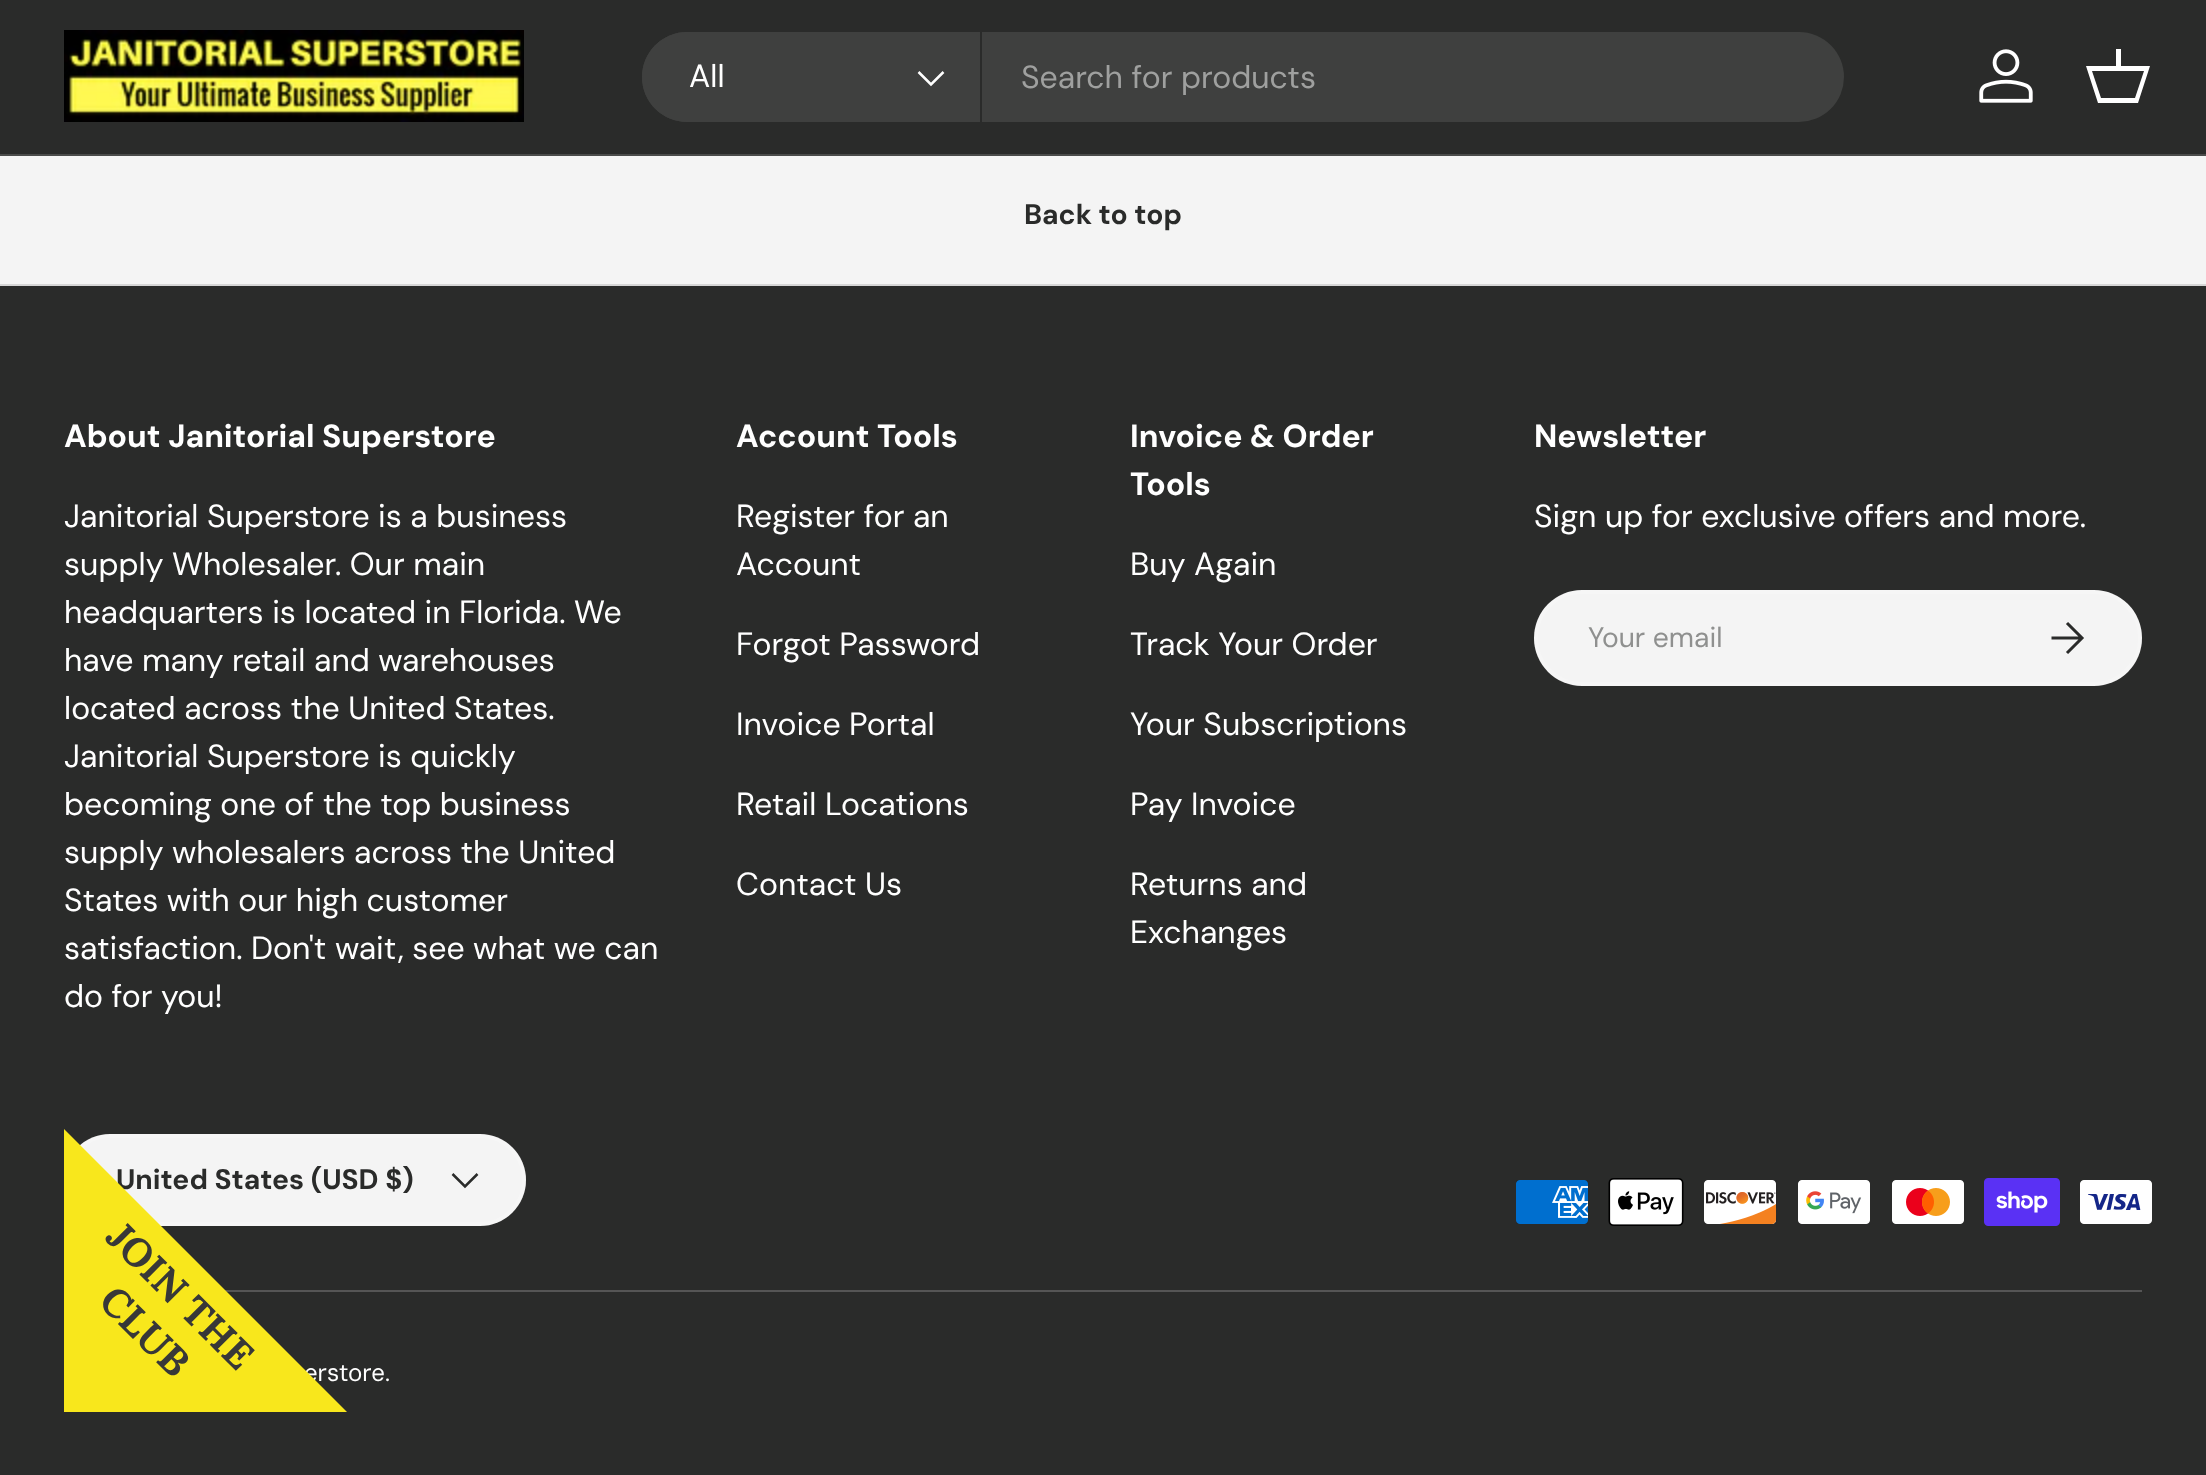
async function draw(canvas) {
  canvas.width = 2206;
  canvas.height = 1475;
  const ctx = canvas.getContext('2d');
  ctx.miterLimit = 4;
  ctx.fontKerning = 'normal';
  function label(s, x, y, font, color) {
    ctx.font = font;
    ctx.fillStyle = color;
    ctx.fillText(s, x, y);
  }
  function rect(x, y, w, h, color) {
    ctx.fillStyle = color;
    ctx.fillRect(x, y, w, h);
  }
  function roundedRect(x, y, w, h, r, color) {
    ctx.fillStyle = color;
    ctx.beginPath();
    ctx.roundRect(x, y, w, h, r);
    ctx.fill();
  }
  async function image(src, x, y, w, h) {
    const img = new Image();
    img.src = src;
    await img.decode();
    ctx.drawImage(img, x, y, w, h);
  }
  let path;

  rect(0, 0, 2206, 1475, '#f4f4f4');
  rect(0, 0, 2206, 154, '#2a2b2a');
  rect(0, 154, 2206, 2, '#4a4b4a');
  await image('assets/img1.png', 64, 30, 460, 92);
  roundedRect(642, 32, 1202, 90, 45, '#3f403f');
  ctx.beginPath();
  ctx.roundRect(642, 32, 340, 90, [45, 0, 0, 45]);
  ctx.fill();
  rect(980, 32, 2, 90, '#2a2b2a');
  label('All', 689, 87, '32px DM Sans', '#fff');
  path = new Path2D('M943.5 72L931 84.5L918.5 72');
  ctx.strokeStyle = '#fff';
  ctx.lineWidth = 2.5;
  ctx.stroke(path);
  label('Search for products', 1021, 88, '32px DM Sans', '#9fa09f');
  await image('assets/img2.png', 1979, 49, 54, 54);
  ctx.fillStyle = '#fff';
  path = new Path2D('M2116 66V49H2121V66H2150L2138 103H2098L2086 66ZM2092 71L2101 98H2135L2144 71Z');
  ctx.fill(path);
  rect(0, 284, 2206, 2, '#d6d6d6');
  label('Back to top', 1024, 224, 'bold 28.25px DM Sans', '#2a2b2a');
  rect(0, 286, 2206, 1189, '#2a2b2a');
  label('About Janitorial Superstore', 64, 447, 'bold 32px "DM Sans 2"', '#fff');
  label('Janitorial Superstore is a business', 64, 527, '32px DM Sans', '#fff');
  label('supply Wholesaler. Our main', 64, 575, '32px DM Sans', '#fff');
  label('headquarters is located in Florida. We', 64, 623, '32px DM Sans', '#fff');
  label('have many retail and warehouses', 64, 671, '32px DM Sans', '#fff');
  label('located across the United States.', 64, 719, '32px DM Sans', '#fff');
  label('Janitorial Superstore is quickly', 64, 767, '32px DM Sans', '#fff');
  label('becoming one of the top business', 64, 815, '32px DM Sans', '#fff');
  label('supply wholesalers across the United', 64, 863, '32px DM Sans', '#fff');
  label('States with our high customer', 64, 911, '32px DM Sans', '#fff');
  label('satisfaction. Don\'t wait, see what we can', 64, 959, '32px DM Sans', '#fff');
  label('do for you!', 64, 1007, '32px DM Sans', '#fff');
  label('Account Tools', 736, 447, 'bold 32px "DM Sans 2"', '#fff');
  label('Register for an', 736, 527, '32px DM Sans', '#fff');
  label('Account', 736, 575, '32px DM Sans', '#fff');
  label('Forgot Password', 736, 655, '32px DM Sans', '#fff');
  label('Invoice Portal', 736, 735, '32px DM Sans', '#fff');
  label('Retail Locations', 736, 815, '32px DM Sans', '#fff');
  label('Contact Us', 736, 895, '32px DM Sans', '#fff');
  label('Invoice & Order', 1130, 447, 'bold 32px "DM Sans 2"', '#fff');
  label('Tools', 1130, 495, 'bold 32px "DM Sans 2"', '#fff');
  label('Buy Again', 1130, 575, '32px DM Sans', '#fff');
  label('Track Your Order', 1130, 655, '32px DM Sans', '#fff');
  label('Your Subscriptions', 1130, 735, '32px DM Sans', '#fff');
  label('Pay Invoice', 1130, 815, '32px DM Sans', '#fff');
  label('Returns and', 1130, 895, '32px DM Sans', '#fff');
  label('Exchanges', 1130, 943, '32px DM Sans', '#fff');
  label('Newsletter', 1534, 447, 'bold 32px "DM Sans 2"', '#fff');
  label('Sign up for exclusive offers and more.', 1534, 527, '32px DM Sans', '#fff');
  roundedRect(1534, 590, 608, 96, 48, '#f4f4f4');
  ctx.beginPath();
  ctx.roundRect(1536, 592, 604, 92, 46);
  ctx.strokeStyle = '#ffffff33';
  ctx.lineWidth = 4;
  ctx.stroke();
  label('Your email', 1588, 647, '28.25px "DM Sans 2"', '#8f908f');
  path = new Path2D('M2051.5 638H2081M2067 623L2082 638L2067 653');
  ctx.strokeStyle = '#2a2b2a';
  ctx.lineWidth = 3;
  ctx.stroke(path);
  roundedRect(64, 1134, 462, 92, 46, '#f4f4f4');
  ctx.beginPath();
  ctx.roundRect(66, 1136, 458, 88, 44);
  ctx.strokeStyle = '#ffffff33';
  ctx.lineWidth = 4;
  ctx.stroke();
  label('United States (USD $)', 116, 1189, 'bold 28.25px DM Sans', '#2a2b2a');
  path = new Path2D('M477.5 1174L465 1186.5L452.5 1174');
  ctx.strokeStyle = '#2a2b2a';
  ctx.lineWidth = 2.5;
  ctx.stroke(path);
  await image('assets/img3.png', 1516, 1180, 72, 44);
  await image('assets/img4.png', 1608, 1178, 76, 48);
  await image('assets/img5.png', 1704, 1180, 73, 44);
  await image('assets/img6.png', 1798, 1180, 72, 44);
  await image('assets/img7.png', 1892, 1180, 72, 44);
  await image('assets/img8.png', 1984, 1178, 76, 48);
  await image('assets/img9.png', 2080, 1180, 72, 44);
  rect(225, 1290, 1917, 2, '#555');
  ctx.wordSpacing = '-1px';
  label('erstore', 304, 1381, '24px "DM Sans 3"', '#fff');
  ctx.wordSpacing = '0px';
  label('.', 385, 1381, '24px "DM Sans 3"', '#fff');
  ctx.save();
  ctx.beginPath();
  ctx.rect(64, 1124, 310, 288);
  ctx.clip();
  ctx.fillStyle = '#f8e71c';
  path = new Path2D('M64 1129L347 1412L64 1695L-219 1412Z');
  ctx.fill(path);
  ctx.restore();
  ctx.font = 'bold 40px Lora';
  ctx.fillStyle = '#383838';
  ctx.save();
  ctx.translate(104, 1239);
  ctx.rotate(45 * Math.PI / 180);
  ctx.fillText('JOIN THE', 0, 0);
  ctx.restore();
  ctx.save();
  ctx.translate(97, 1303);
  ctx.rotate(45 * Math.PI / 180);
  ctx.fillText('CLUB', 0, 0);
  ctx.restore();
}

draw(document.querySelector('canvas'));
